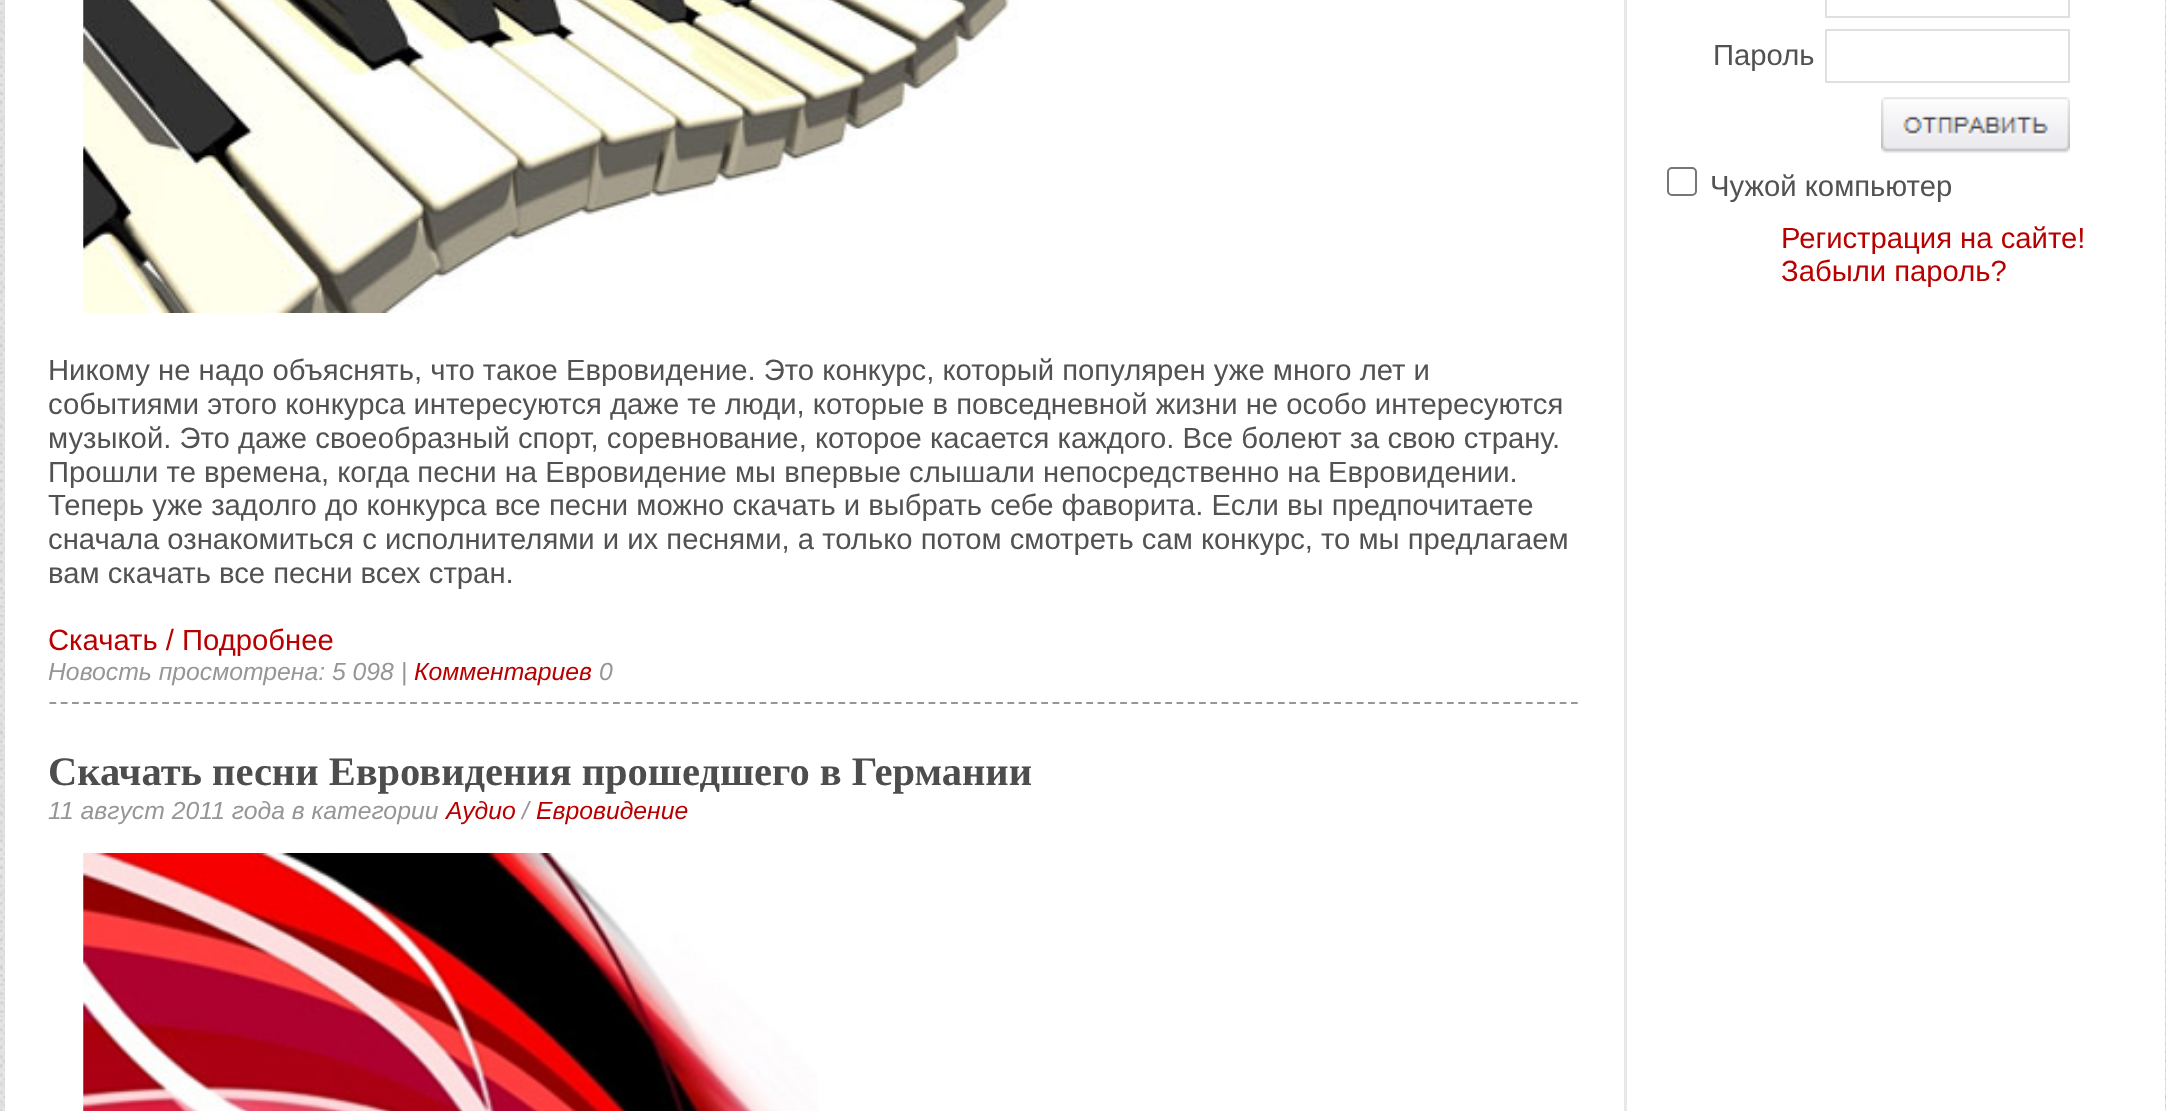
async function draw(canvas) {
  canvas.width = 2166;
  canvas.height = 1111;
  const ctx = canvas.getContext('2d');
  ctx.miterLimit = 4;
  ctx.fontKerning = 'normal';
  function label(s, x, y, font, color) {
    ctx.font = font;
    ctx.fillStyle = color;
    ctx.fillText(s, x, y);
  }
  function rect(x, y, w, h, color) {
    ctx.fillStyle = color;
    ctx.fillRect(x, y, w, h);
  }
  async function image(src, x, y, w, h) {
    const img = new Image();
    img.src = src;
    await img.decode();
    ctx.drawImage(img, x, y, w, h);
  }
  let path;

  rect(0, 0, 2166, 1111, '#fff');
  await image('assets/img1.png', 0, 0, 2166, 1111);
  ctx.fillStyle = '#00000033';
  ctx.filter = 'blur(56px)';
  ctx.beginPath();
  ctx.rect(5, -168, 2160, 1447);
  ctx.fill();
  ctx.filter = 'none';
  rect(5, 0, 2160, 1111, '#fff');
  rect(1624, 0, 3, 1111, '#e8e8e8');
  ctx.strokeStyle = '#e0e0e0';
  ctx.lineWidth = 2;
  ctx.strokeRect(1826, -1, 243, 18);
  label('Пароль', 1713, 65, '29.25px Liberation Sans', '#525253');
  ctx.strokeRect(1826, 30, 243, 52);
  await image('assets/img2.png', 1881, 97, 189, 57);
  ctx.beginPath();
  ctx.roundRect(1668, 168, 28, 27, 4);
  ctx.strokeStyle = '#767676';
  ctx.stroke();
  label('Чужой компьютер', 1710, 196, '29.25px Liberation Sans', '#525253');
  label('Регистрация на сайте!', 1781, 248, '29.25px Liberation Sans', '#b90000');
  label('Забыли пароль?', 1781, 281, '29.25px Liberation Sans', '#b90000');
  path = new Path2D('M49.5 703H1579.5');
  ctx.strokeStyle = '#969696';
  ctx.lineWidth = 2.2;
  ctx.setLineDash([6.75, 4.52]);
  ctx.stroke(path);
  await image('assets/img3.png', 83, 0, 936, 313);
  label('Никому не надо объяснять, что такое Евровидение. Это конкурс, который популярен уже много лет и', 48, 380, '29.25px Liberation Sans', '#525253');
  label('событиями этого конкурса интересуются даже те люди, которые в повседневной жизни не особо интересуются', 48, 414, '29.25px Liberation Sans', '#525253');
  label('музыкой. Это даже своеобразный спорт, соревнование, которое касается каждого. Все болеют за свою страну.', 48, 448, '29.25px Liberation Sans', '#525253');
  label('Прошли те времена, когда песни на Евровидение мы впервые слышали непосредственно на Евровидении.', 48, 482, '29.25px Liberation Sans', '#525253');
  label('Теперь уже задолго до конкурса все песни можно скачать и выбрать себе фаворита. Если вы предпочитаете', 48, 515, '29.25px Liberation Sans', '#525253');
  label('сначала ознакомиться с исполнителями и их песнями, а только потом смотреть сам конкурс, то мы предлагаем', 48, 549, '29.25px Liberation Sans', '#525253');
  label('вам скачать все песни всех стран.', 48, 583, '29.25px Liberation Sans', '#525253');
  label('Скачать / Подробнее', 48, 650, '29.25px Liberation Sans', '#b90000');
  label('Новость просмотрена: 5 098 |', 48, 680, 'italic 24.75px Liberation Sans', '#969696');
  label('Комментариев', 414, 680, 'italic 24.75px Liberation Sans', '#b90000');
  label('0', 599, 680, 'italic 24.75px Liberation Sans', '#969696');
  label('Скачать песни Евровидения прошедшего в Германии', 48, 785, 'bold 40.5px Liberation Serif', '#4d4d4d');
  label('11 август 2011 года в категории', 48, 819, 'italic 24.75px Liberation Sans', '#969696');
  label('Аудио', 446, 819, 'italic 24.75px Liberation Sans', '#b90000');
  label('/', 522, 819, 'italic 24.75px Liberation Sans', '#969696');
  label('Евровидение', 536, 819, 'italic 24.75px Liberation Sans', '#b90000');
  await image('assets/img4.png', 83, 853, 735, 258);
}

draw(document.querySelector('canvas'));
